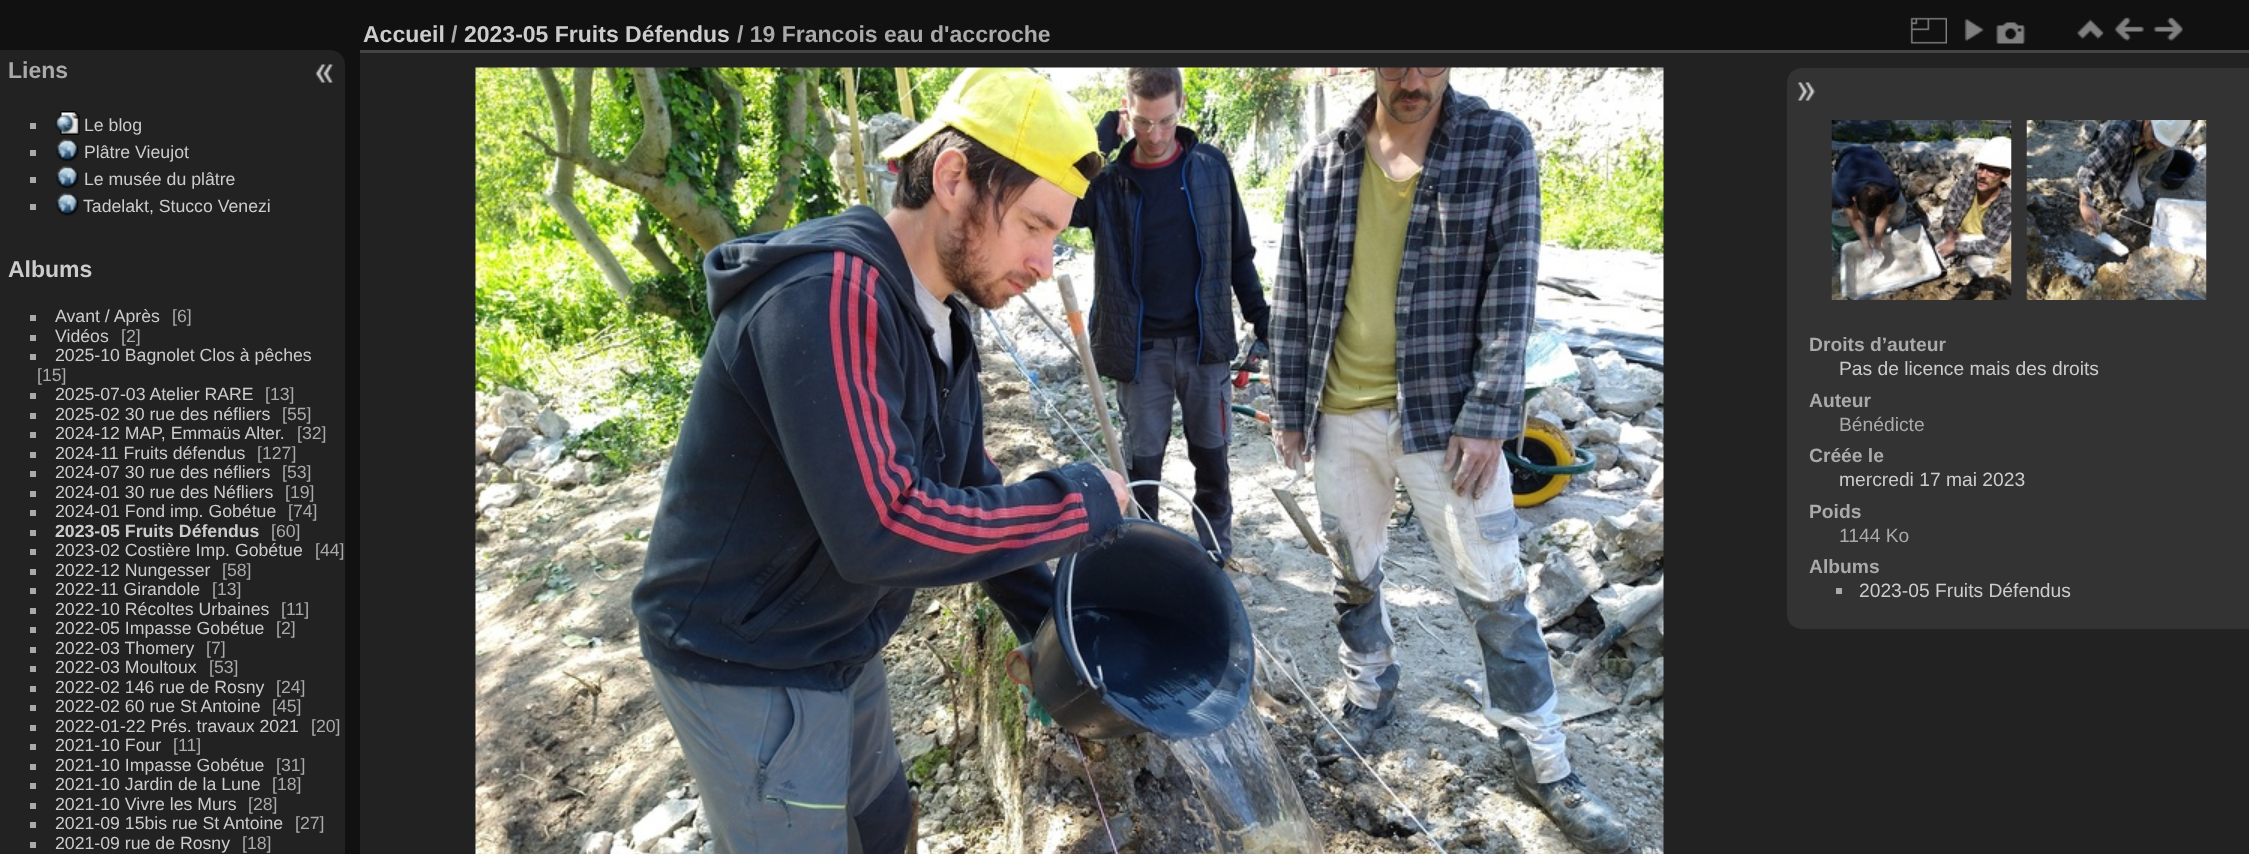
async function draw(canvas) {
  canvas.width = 2249;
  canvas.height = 854;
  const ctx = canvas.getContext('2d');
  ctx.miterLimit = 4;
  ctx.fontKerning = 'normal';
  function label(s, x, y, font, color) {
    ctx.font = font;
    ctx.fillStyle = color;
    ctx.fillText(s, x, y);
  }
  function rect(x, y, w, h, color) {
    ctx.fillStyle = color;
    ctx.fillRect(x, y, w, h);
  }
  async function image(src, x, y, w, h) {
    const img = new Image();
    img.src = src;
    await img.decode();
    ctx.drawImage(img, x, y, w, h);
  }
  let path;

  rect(0, 0, 2249, 854, '#111');
  ctx.fillStyle = '#222';
  path = new Path2D('M0 50H330C338.5 50 345 56.5 345 65V854C345 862.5 338.5 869 330 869H0Z');
  ctx.fill(path);
  label('Liens', 8, 78, 'bold 23px Liberation Sans', '#aaa');
  rect(30, 123, 6, 6, '#aaa');
  await image('assets/img1.png', 55, 111, 25, 24);
  label('Le blog', 84, 131, '17.7px Liberation Sans', '#ccc');
  rect(30, 150, 6, 6, '#aaa');
  await image('assets/img2.png', 56, 138, 23, 24);
  label('Plâtre Vieujot', 84, 158, '17.7px Liberation Sans', '#ccc');
  rect(30, 177, 6, 6, '#aaa');
  await image('assets/img2.png', 56, 165, 23, 24);
  label('Le musée du plâtre', 84, 185, '17.7px Liberation Sans', '#ccc');
  rect(30, 204, 6, 6, '#aaa');
  await image('assets/img2.png', 56, 192, 23, 24);
  label('Tadelakt, Stucco Venezi', 83, 212, '17.7px Liberation Sans', '#ccc');
  label('Albums', 8, 277, 'bold 23px Liberation Sans', '#ccc');
  rect(30, 315, 6, 6, '#aaa');
  label('Avant / Après', 55, 322, '17.7px Liberation Sans', '#ccc');
  label('[6]', 172, 322, '17.7px Liberation Sans', '#aaa');
  rect(30, 335, 6, 6, '#aaa');
  label('Vidéos', 55, 342, '17.7px Liberation Sans', '#ccc');
  label('[2]', 121, 342, '17.7px Liberation Sans', '#aaa');
  rect(30, 354, 6, 6, '#aaa');
  label('2025-10 Bagnolet Clos à pêches', 55, 361, '17.7px Liberation Sans', '#ccc');
  label('[15]', 37, 381, '17.7px Liberation Sans', '#aaa');
  rect(30, 393, 6, 6, '#aaa');
  label('2025-07-03 Atelier RARE', 55, 400, '17.7px Liberation Sans', '#ccc');
  label('[13]', 265, 400, '17.7px Liberation Sans', '#aaa');
  rect(30, 413, 6, 6, '#aaa');
  label('2025-02 30 rue des néfliers', 55, 420, '17.7px Liberation Sans', '#ccc');
  label('[55]', 282, 420, '17.7px Liberation Sans', '#aaa');
  rect(30, 432, 6, 6, '#aaa');
  label('2024-12 MAP, Emmaüs Alter.', 55, 439, '17.7px Liberation Sans', '#ccc');
  label('[32]', 297, 439, '17.7px Liberation Sans', '#aaa');
  rect(30, 452, 6, 6, '#aaa');
  label('2024-11 Fruits défendus', 55, 459, '17.7px Liberation Sans', '#ccc');
  label('[127]', 257, 459, '17.7px Liberation Sans', '#aaa');
  rect(30, 471, 6, 6, '#aaa');
  label('2024-07 30 rue des néfliers', 55, 478, '17.7px Liberation Sans', '#ccc');
  label('[53]', 282, 478, '17.7px Liberation Sans', '#aaa');
  rect(30, 491, 6, 6, '#aaa');
  label('2024-01 30 rue des Néfliers', 55, 498, '17.7px Liberation Sans', '#ccc');
  label('[19]', 285, 498, '17.7px Liberation Sans', '#aaa');
  rect(30, 510, 6, 6, '#aaa');
  label('2024-01 Fond imp. Gobétue', 55, 517, '17.7px Liberation Sans', '#ccc');
  label('[74]', 288, 517, '17.7px Liberation Sans', '#aaa');
  rect(30, 530, 6, 6, '#aaa');
  label('2023-05 Fruits Défendus', 55, 537, 'bold 17.7px Liberation Sans', '#ccc');
  label('[60]', 271, 537, '17.7px Liberation Sans', '#aaa');
  rect(30, 549, 6, 6, '#aaa');
  label('2023-02 Costière Imp. Gobétue', 55, 556, '17.7px Liberation Sans', '#ccc');
  label('[44]', 315, 556, '17.7px Liberation Sans', '#aaa');
  rect(30, 569, 6, 6, '#aaa');
  label('2022-12 Nungesser', 55, 576, '17.7px Liberation Sans', '#ccc');
  label('[58]', 222, 576, '17.7px Liberation Sans', '#aaa');
  rect(30, 588, 6, 6, '#aaa');
  label('2022-11 Girandole', 55, 595, '17.7px Liberation Sans', '#ccc');
  label('[13]', 212, 595, '17.7px Liberation Sans', '#aaa');
  rect(30, 608, 6, 6, '#aaa');
  label('2022-10 Récoltes Urbaines', 55, 615, '17.7px Liberation Sans', '#ccc');
  label('[11]', 281, 615, '17.7px Liberation Sans', '#aaa');
  rect(30, 627, 6, 6, '#aaa');
  label('2022-05 Impasse Gobétue', 55, 634, '17.7px Liberation Sans', '#ccc');
  label('[2]', 276, 634, '17.7px Liberation Sans', '#aaa');
  rect(30, 647, 6, 6, '#aaa');
  label('2022-03 Thomery', 55, 654, '17.7px Liberation Sans', '#ccc');
  label('[7]', 206, 654, '17.7px Liberation Sans', '#aaa');
  rect(30, 666, 6, 6, '#aaa');
  label('2022-03 Moultoux', 55, 673, '17.7px Liberation Sans', '#ccc');
  label('[53]', 209, 673, '17.7px Liberation Sans', '#aaa');
  rect(30, 686, 6, 6, '#aaa');
  label('2022-02 146 rue de Rosny', 55, 693, '17.7px Liberation Sans', '#ccc');
  label('[24]', 276, 693, '17.7px Liberation Sans', '#aaa');
  rect(30, 705, 6, 6, '#aaa');
  label('2022-02 60 rue St Antoine', 55, 712, '17.7px Liberation Sans', '#ccc');
  label('[45]', 272, 712, '17.7px Liberation Sans', '#aaa');
  rect(30, 725, 6, 6, '#aaa');
  label('2022-01-22 Prés. travaux 2021', 55, 732, '17.7px Liberation Sans', '#ccc');
  label('[20]', 311, 732, '17.7px Liberation Sans', '#aaa');
  rect(30, 744, 6, 6, '#aaa');
  label('2021-10 Four', 55, 751, '17.7px Liberation Sans', '#ccc');
  label('[11]', 173, 751, '17.7px Liberation Sans', '#aaa');
  rect(30, 764, 6, 6, '#aaa');
  label('2021-10 Impasse Gobétue', 55, 771, '17.7px Liberation Sans', '#ccc');
  label('[31]', 276, 771, '17.7px Liberation Sans', '#aaa');
  rect(30, 783, 6, 6, '#aaa');
  label('2021-10 Jardin de la Lune', 55, 790, '17.7px Liberation Sans', '#ccc');
  label('[18]', 272, 790, '17.7px Liberation Sans', '#aaa');
  rect(30, 803, 6, 6, '#aaa');
  label('2021-10 Vivre les Murs', 55, 810, '17.7px Liberation Sans', '#ccc');
  label('[28]', 248, 810, '17.7px Liberation Sans', '#aaa');
  rect(30, 822, 6, 6, '#aaa');
  label('2021-09 15bis rue St Antoine', 55, 829, '17.7px Liberation Sans', '#ccc');
  label('[27]', 295, 829, '17.7px Liberation Sans', '#aaa');
  rect(30, 842, 6, 6, '#aaa');
  label('2021-09 rue de Rosny', 55, 849, '17.7px Liberation Sans', '#ccc');
  label('[18]', 242, 849, '17.7px Liberation Sans', '#aaa');
  rect(360, 53, 1889, 801, '#222');
  rect(360, 50, 1889, 3, '#444');
  label('Accueil', 363, 42, 'bold 23px Liberation Sans', '#ccc');
  label('/', 451, 42, 'bold 23px Liberation Sans', '#aaa');
  label('2023-05 Fruits Défendus', 464, 42, 'bold 23px Liberation Sans', '#ccc');
  label('/ 19 Francois eau d\'accroche', 737, 42, 'bold 23px Liberation Sans', '#aaa');
  await image('assets/img3.png', 1910, 17, 37, 27);
  await image('assets/img4.png', 1964, 19, 20, 22);
  await image('assets/img5.png', 1996, 22, 30, 22);
  await image('assets/img6.png', 2077, 19, 27, 21);
  await image('assets/img7.png', 2114, 17, 30, 24);
  await image('assets/img8.png', 2153, 17, 30, 24);
  await image('assets/img9.png', 475, 67, 1189, 787);
  ctx.fillStyle = '#333';
  path = new Path2D('M1802 68H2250V629H1802C1793.5 629 1787 622.5 1787 614V83C1787 74.5 1793.5 68 1802 68Z');
  ctx.fill(path);
  await image('assets/img10.png', 1797, 82, 19, 19);
  await image('assets/img11.png', 1831, 120, 181, 180);
  await image('assets/img12.png', 2026, 120, 181, 180);
  label('Droits d’auteur', 1809, 351, 'bold 19.25px Liberation Sans', '#aaa');
  label('Pas de licence mais des droits', 1839, 375, '19.25px Liberation Sans', '#ccc');
  label('Auteur', 1809, 407, 'bold 19.25px Liberation Sans', '#aaa');
  label('Bénédicte', 1839, 431, '19.25px Liberation Sans', '#aaa');
  label('Créée le', 1809, 462, 'bold 19.25px Liberation Sans', '#aaa');
  label('mercredi 17 mai 2023', 1839, 486, '19.25px Liberation Sans', '#ccc');
  label('Poids', 1809, 518, 'bold 19.25px Liberation Sans', '#aaa');
  label('1144 Ko', 1839, 542, '19.25px Liberation Sans', '#aaa');
  label('Albums', 1809, 573, 'bold 19.25px Liberation Sans', '#aaa');
  rect(1836, 588, 6, 6, '#aaa');
  label('2023-05 Fruits Défendus', 1859, 597, '19.25px Liberation Sans', '#ccc');
  await image('assets/img13.png', 315, 64, 19, 19);
}

draw(document.querySelector('canvas'));
